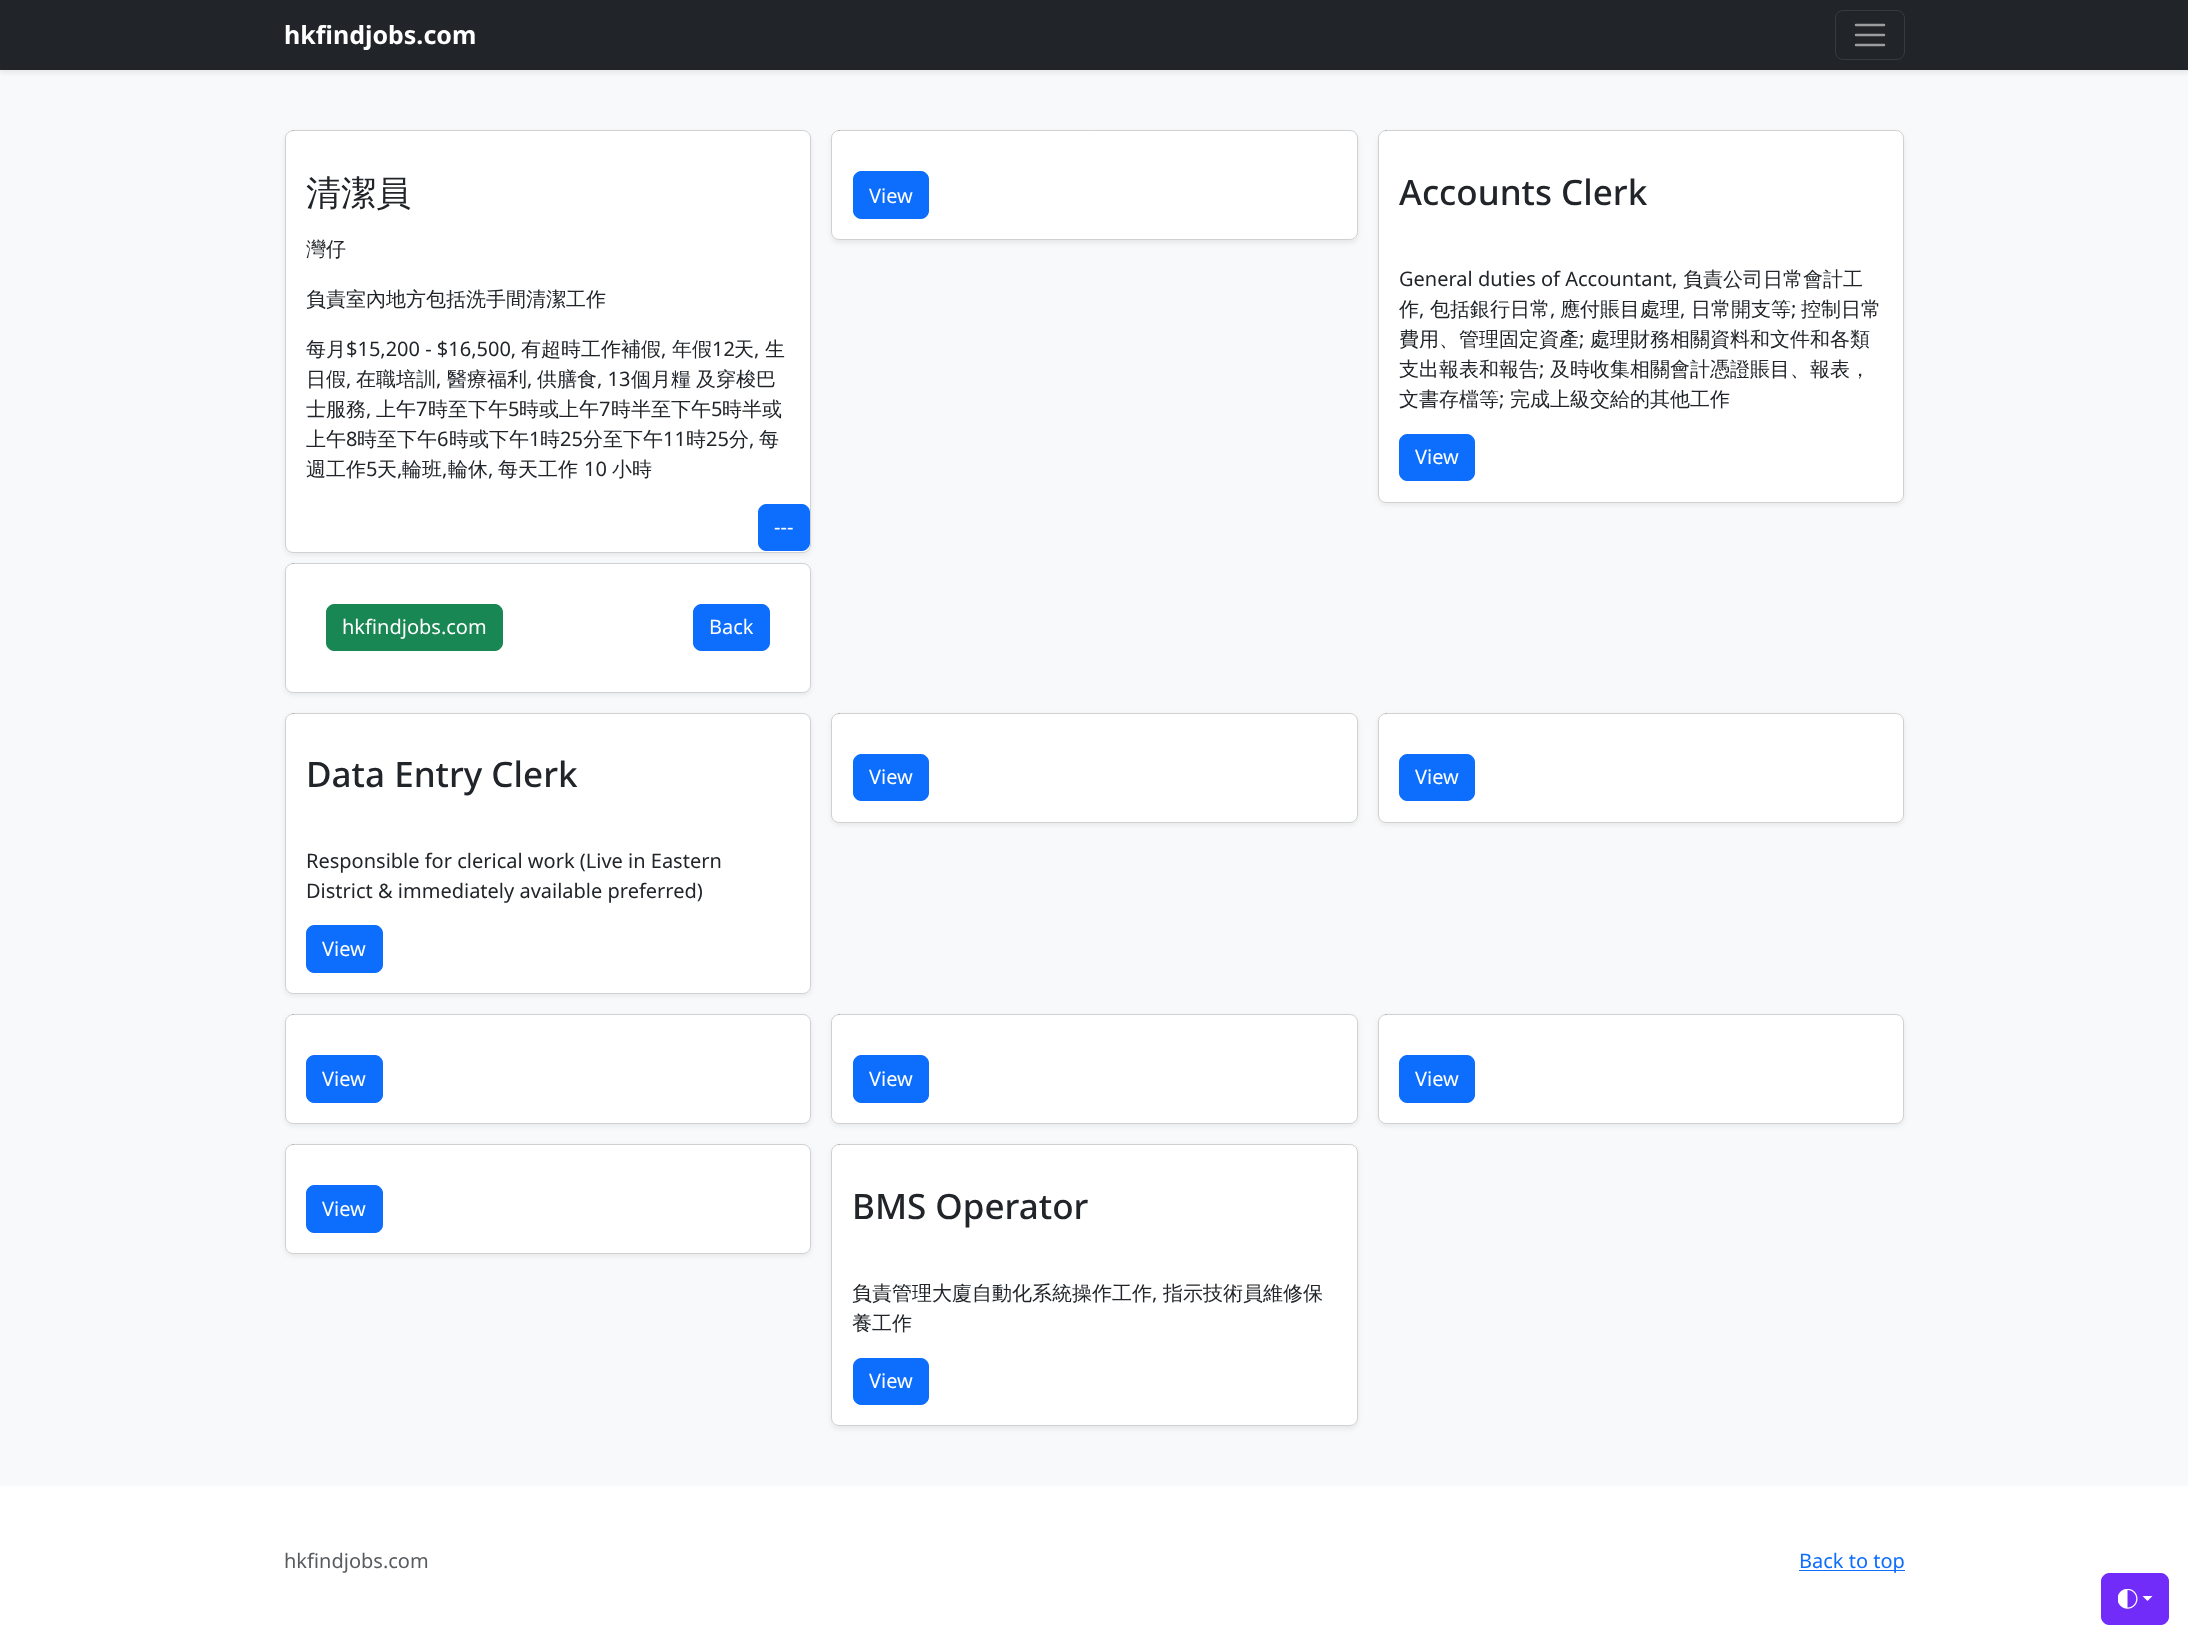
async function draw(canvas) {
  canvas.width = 2188;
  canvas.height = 1645;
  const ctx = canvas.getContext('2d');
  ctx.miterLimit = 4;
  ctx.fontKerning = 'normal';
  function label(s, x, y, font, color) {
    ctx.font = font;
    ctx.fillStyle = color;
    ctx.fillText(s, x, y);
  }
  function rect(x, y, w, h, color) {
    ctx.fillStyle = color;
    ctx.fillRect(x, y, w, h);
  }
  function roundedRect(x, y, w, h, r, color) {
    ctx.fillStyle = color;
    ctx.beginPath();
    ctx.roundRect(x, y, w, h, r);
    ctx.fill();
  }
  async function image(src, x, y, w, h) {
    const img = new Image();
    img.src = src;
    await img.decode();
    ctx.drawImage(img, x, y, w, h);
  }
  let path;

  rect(0, 0, 2188, 1645, '#fff');
  rect(0, 70, 2188, 1416, '#f8f9fa');
  ctx.fillStyle = '#00000012';
  ctx.filter = 'blur(2.5px)';
  ctx.beginPath();
  ctx.rect(0, 3, 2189, 70);
  ctx.fill();
  ctx.filter = 'none';
  rect(0, 0, 2188, 70, '#212529');
  label('hkfindjobs.com', 284, 44, 'bold 25px Noto Sans', '#fff');
  ctx.beginPath();
  ctx.roundRect(1835.5, 10.5, 69, 49, 7.5);
  ctx.strokeStyle = '#373b3e';
  ctx.stroke();
  path = new Path2D('M1856 25H1884M1856 35H1884M1856 45H1884');
  ctx.strokeStyle = '#9b9d9f';
  ctx.lineWidth = 2.5;
  ctx.lineCap = 'round';
  ctx.stroke(path);
  ctx.fillStyle = '#00000012';
  ctx.filter = 'blur(2.5px)';
  ctx.beginPath();
  ctx.roundRect(285, 133, 526, 422, 8);
  ctx.fill();
  ctx.filter = 'none';
  roundedRect(285, 130, 526, 423, 8, '#fff');
  ctx.beginPath();
  ctx.roundRect(285.5, 130.5, 525, 422, 7.5);
  ctx.strokeStyle = '#0000002e';
  ctx.lineWidth = 1;
  ctx.stroke();
  label('清潔員', 306, 205, '500 35px WenQuanYi Zen Hei', '#212529');
  label('灣仔', 306, 256, '500 20px WenQuanYi Zen Hei', '#212529');
  label('負責室內地方包括洗手間清潔工作', 306, 306, '500 20px WenQuanYi Zen Hei', '#212529');
  label('每月', 306, 356, '500 20px WenQuanYi Zen Hei', '#212529');
  label('$15,200 - $16,500,', 346, 356, '20px Noto Sans', '#212529');
  label('有超時工作補假', 521, 356, '500 20px WenQuanYi Zen Hei', '#212529');
  label(',', 661, 356, '20px Noto Sans', '#212529');
  label('年假', 672, 356, '500 20px WenQuanYi Zen Hei', '#212529');
  label('12', 712, 356, '20px Noto Sans', '#212529');
  label('天', 734, 356, '500 20px WenQuanYi Zen Hei', '#212529');
  label(',', 754, 356, '20px Noto Sans', '#212529');
  label('生', 765, 356, '500 20px WenQuanYi Zen Hei', '#212529');
  label('日假', 306, 386, '500 20px WenQuanYi Zen Hei', '#212529');
  label(',', 346, 386, '20px Noto Sans', '#212529');
  label('在職培訓', 356, 386, '500 20px WenQuanYi Zen Hei', '#212529');
  label(',', 436, 386, '20px Noto Sans', '#212529');
  label('醫療福利', 447, 386, '500 20px WenQuanYi Zen Hei', '#212529');
  label(',', 527, 386, '20px Noto Sans', '#212529');
  label('供膳食', 537, 386, '500 20px WenQuanYi Zen Hei', '#212529');
  label(', 13', 597, 386, '20px Noto Sans', '#212529');
  label('個月糧', 631, 386, '500 20px WenQuanYi Zen Hei', '#212529');
  label('及穿梭巴', 696, 386, '500 20px WenQuanYi Zen Hei', '#212529');
  label('士服務', 306, 416, '500 20px WenQuanYi Zen Hei', '#212529');
  label(',', 366, 416, '20px Noto Sans', '#212529');
  label('上午', 376, 416, '500 20px WenQuanYi Zen Hei', '#212529');
  label('7', 416, 416, '20px Noto Sans', '#212529');
  label('時至下午', 428, 416, '500 20px WenQuanYi Zen Hei', '#212529');
  label('5', 508, 416, '20px Noto Sans', '#212529');
  label('時或上午', 519, 416, '500 20px WenQuanYi Zen Hei', '#212529');
  label('7', 599, 416, '20px Noto Sans', '#212529');
  label('時半至下午', 611, 416, '500 20px WenQuanYi Zen Hei', '#212529');
  label('5', 711, 416, '20px Noto Sans', '#212529');
  label('時半或', 722, 416, '500 20px WenQuanYi Zen Hei', '#212529');
  label('上午', 306, 446, '500 20px WenQuanYi Zen Hei', '#212529');
  label('8', 346, 446, '20px Noto Sans', '#212529');
  label('時至下午', 357, 446, '500 20px WenQuanYi Zen Hei', '#212529');
  label('6', 437, 446, '20px Noto Sans', '#212529');
  label('時或下午', 449, 446, '500 20px WenQuanYi Zen Hei', '#212529');
  label('1', 529, 446, '20px Noto Sans', '#212529');
  label('時', 540, 446, '500 20px WenQuanYi Zen Hei', '#212529');
  label('25', 560, 446, '20px Noto Sans', '#212529');
  label('分至下午', 583, 446, '500 20px WenQuanYi Zen Hei', '#212529');
  label('11', 663, 446, '20px Noto Sans', '#212529');
  label('時', 686, 446, '500 20px WenQuanYi Zen Hei', '#212529');
  label('25', 706, 446, '20px Noto Sans', '#212529');
  label('分', 729, 446, '500 20px WenQuanYi Zen Hei', '#212529');
  label(',', 749, 446, '20px Noto Sans', '#212529');
  label('每', 759, 446, '500 20px WenQuanYi Zen Hei', '#212529');
  label('週工作', 306, 476, '500 20px WenQuanYi Zen Hei', '#212529');
  label('5', 366, 476, '20px Noto Sans', '#212529');
  label('天', 377, 476, '500 20px WenQuanYi Zen Hei', '#212529');
  label(',', 397, 476, '20px Noto Sans', '#212529');
  label('輪班', 402, 476, '500 20px WenQuanYi Zen Hei', '#212529');
  label(',', 442, 476, '20px Noto Sans', '#212529');
  label('輪休', 448, 476, '500 20px WenQuanYi Zen Hei', '#212529');
  label(',', 488, 476, '20px Noto Sans', '#212529');
  label('每天工作', 498, 476, '500 20px WenQuanYi Zen Hei', '#212529');
  label('10', 584, 476, '20px Noto Sans', '#212529');
  label('小時', 612, 476, '500 20px WenQuanYi Zen Hei', '#212529');
  ctx.fillStyle = '#0d6efd';
  ctx.beginPath();
  ctx.roundRect(758.5, 504.5, 51, 46, 7.5);
  ctx.fill();
  ctx.strokeStyle = '#0d6efd';
  ctx.stroke();
  label('---', 774, 534, '20px Noto Sans', '#fff');
  ctx.fillStyle = '#00000012';
  ctx.filter = 'blur(2.5px)';
  ctx.beginPath();
  ctx.roundRect(285, 565, 526, 130, 8);
  ctx.fill();
  ctx.filter = 'none';
  roundedRect(285, 563, 526, 130, 8, '#fff');
  ctx.beginPath();
  ctx.roundRect(285.5, 563.5, 525, 129, 7.5);
  ctx.strokeStyle = '#0000002e';
  ctx.stroke();
  ctx.fillStyle = '#198754';
  ctx.beginPath();
  ctx.roundRect(326.5, 604.5, 176, 46, 7.5);
  ctx.fill();
  ctx.strokeStyle = '#198754';
  ctx.stroke();
  label('hkfindjobs.com', 342, 634, '20px Noto Sans', '#fff');
  ctx.fillStyle = '#0d6efd';
  ctx.beginPath();
  ctx.roundRect(693.5, 604.5, 76, 46, 7.5);
  ctx.fill();
  ctx.strokeStyle = '#0d6efd';
  ctx.stroke();
  label('Back', 709, 634, '20px Noto Sans', '#fff');
  ctx.fillStyle = '#00000012';
  ctx.filter = 'blur(2.5px)';
  ctx.beginPath();
  ctx.roundRect(831, 133, 527, 110, 8);
  ctx.fill();
  ctx.filter = 'none';
  roundedRect(831, 130, 527, 110, 8, '#fff');
  ctx.beginPath();
  ctx.roundRect(831.5, 130.5, 526, 109, 7.5);
  ctx.strokeStyle = '#0000002e';
  ctx.stroke();
  ctx.fillStyle = '#0d6efd';
  ctx.beginPath();
  ctx.roundRect(853.5, 171.5, 75, 47, 7.5);
  ctx.fill();
  ctx.strokeStyle = '#0d6efd';
  ctx.stroke();
  label('View', 869, 203, '20px Noto Sans', '#fff');
  ctx.fillStyle = '#00000012';
  ctx.filter = 'blur(2.5px)';
  ctx.beginPath();
  ctx.roundRect(1378, 133, 526, 372, 8);
  ctx.fill();
  ctx.filter = 'none';
  roundedRect(1378, 130, 526, 373, 8, '#fff');
  ctx.beginPath();
  ctx.roundRect(1378.5, 130.5, 525, 372, 7.5);
  ctx.strokeStyle = '#0000002e';
  ctx.stroke();
  label('Accounts Clerk', 1399, 205, '500 35px Noto Sans', '#212529');
  label('General duties of Accountant,', 1399, 286, '20px Noto Sans', '#212529');
  label('負責公司日常會計工', 1683, 286, '500 20px WenQuanYi Zen Hei', '#212529');
  label('作', 1399, 316, '500 20px WenQuanYi Zen Hei', '#212529');
  label(',', 1419, 316, '20px Noto Sans', '#212529');
  label('包括銀行日常', 1430, 316, '500 20px WenQuanYi Zen Hei', '#212529');
  label(',', 1550, 316, '20px Noto Sans', '#212529');
  label('應付賬目處理', 1560, 316, '500 20px WenQuanYi Zen Hei', '#212529');
  label(',', 1680, 316, '20px Noto Sans', '#212529');
  label('日常開支等', 1691, 316, '500 20px WenQuanYi Zen Hei', '#212529');
  label(';', 1791, 316, '20px Noto Sans', '#212529');
  label('控制日常', 1801, 316, '500 20px WenQuanYi Zen Hei', '#212529');
  label('費用、管理固定資產', 1399, 346, '500 20px WenQuanYi Zen Hei', '#212529');
  label(';', 1579, 346, '20px Noto Sans', '#212529');
  label('處理財務相關資料和文件和各類', 1590, 346, '500 20px WenQuanYi Zen Hei', '#212529');
  label('支出報表和報告', 1399, 376, '500 20px WenQuanYi Zen Hei', '#212529');
  label(';', 1539, 376, '20px Noto Sans', '#212529');
  label('及時收集相關會計憑證賬目、報表，', 1550, 376, '500 20px WenQuanYi Zen Hei', '#212529');
  label('文書存檔等', 1399, 406, '500 20px WenQuanYi Zen Hei', '#212529');
  label(';', 1499, 406, '20px Noto Sans', '#212529');
  label('完成上級交給的其他工作', 1510, 406, '500 20px WenQuanYi Zen Hei', '#212529');
  ctx.fillStyle = '#0d6efd';
  ctx.beginPath();
  ctx.roundRect(1399.5, 434.5, 75, 46, 7.5);
  ctx.fill();
  ctx.strokeStyle = '#0d6efd';
  ctx.stroke();
  label('View', 1415, 464, '20px Noto Sans', '#fff');
  ctx.fillStyle = '#00000012';
  ctx.filter = 'blur(2.5px)';
  ctx.beginPath();
  ctx.roundRect(285, 715, 526, 281, 8);
  ctx.fill();
  ctx.filter = 'none';
  roundedRect(285, 713, 526, 281, 8, '#fff');
  ctx.beginPath();
  ctx.roundRect(285.5, 713.5, 525, 280, 7.5);
  ctx.strokeStyle = '#0000002e';
  ctx.stroke();
  label('Data Entry Clerk', 306, 787, '500 35px Noto Sans', '#212529');
  label('Responsible for clerical work (Live in Eastern', 306, 868, '20px Noto Sans', '#212529');
  label('District & immediately available preferred)', 306, 898, '20px Noto Sans', '#212529');
  ctx.fillStyle = '#0d6efd';
  ctx.beginPath();
  ctx.roundRect(306.5, 925.5, 76, 47, 7.5);
  ctx.fill();
  ctx.strokeStyle = '#0d6efd';
  ctx.stroke();
  label('View', 322, 956, '20px Noto Sans', '#fff');
  ctx.fillStyle = '#00000012';
  ctx.filter = 'blur(2.5px)';
  ctx.beginPath();
  ctx.roundRect(831, 715, 527, 110, 8);
  ctx.fill();
  ctx.filter = 'none';
  roundedRect(831, 713, 527, 110, 8, '#fff');
  ctx.beginPath();
  ctx.roundRect(831.5, 713.5, 526, 109, 7.5);
  ctx.strokeStyle = '#0000002e';
  ctx.stroke();
  ctx.fillStyle = '#0d6efd';
  ctx.beginPath();
  ctx.roundRect(853.5, 754.5, 75, 46, 7.5);
  ctx.fill();
  ctx.strokeStyle = '#0d6efd';
  ctx.stroke();
  label('View', 869, 784, '20px Noto Sans', '#fff');
  ctx.fillStyle = '#00000012';
  ctx.filter = 'blur(2.5px)';
  ctx.beginPath();
  ctx.roundRect(1378, 715, 526, 110, 8);
  ctx.fill();
  ctx.filter = 'none';
  roundedRect(1378, 713, 526, 110, 8, '#fff');
  ctx.beginPath();
  ctx.roundRect(1378.5, 713.5, 525, 109, 7.5);
  ctx.strokeStyle = '#0000002e';
  ctx.stroke();
  ctx.fillStyle = '#0d6efd';
  ctx.beginPath();
  ctx.roundRect(1399.5, 754.5, 75, 46, 7.5);
  ctx.fill();
  ctx.strokeStyle = '#0d6efd';
  ctx.stroke();
  label('View', 1415, 784, '20px Noto Sans', '#fff');
  ctx.fillStyle = '#00000012';
  ctx.filter = 'blur(2.5px)';
  ctx.beginPath();
  ctx.roundRect(285, 1016, 526, 110, 8);
  ctx.fill();
  ctx.filter = 'none';
  roundedRect(285, 1014, 526, 110, 8, '#fff');
  ctx.beginPath();
  ctx.roundRect(285.5, 1014.5, 525, 109, 7.5);
  ctx.strokeStyle = '#0000002e';
  ctx.stroke();
  ctx.fillStyle = '#0d6efd';
  ctx.beginPath();
  ctx.roundRect(306.5, 1055.5, 76, 47, 7.5);
  ctx.fill();
  ctx.strokeStyle = '#0d6efd';
  ctx.stroke();
  label('View', 322, 1086, '20px Noto Sans', '#fff');
  ctx.fillStyle = '#00000012';
  ctx.filter = 'blur(2.5px)';
  ctx.beginPath();
  ctx.roundRect(831, 1016, 527, 110, 8);
  ctx.fill();
  ctx.filter = 'none';
  roundedRect(831, 1014, 527, 110, 8, '#fff');
  ctx.beginPath();
  ctx.roundRect(831.5, 1014.5, 526, 109, 7.5);
  ctx.strokeStyle = '#0000002e';
  ctx.stroke();
  ctx.fillStyle = '#0d6efd';
  ctx.beginPath();
  ctx.roundRect(853.5, 1055.5, 75, 47, 7.5);
  ctx.fill();
  ctx.strokeStyle = '#0d6efd';
  ctx.stroke();
  label('View', 869, 1086, '20px Noto Sans', '#fff');
  ctx.fillStyle = '#00000012';
  ctx.filter = 'blur(2.5px)';
  ctx.beginPath();
  ctx.roundRect(1378, 1016, 526, 110, 8);
  ctx.fill();
  ctx.filter = 'none';
  roundedRect(1378, 1014, 526, 110, 8, '#fff');
  ctx.beginPath();
  ctx.roundRect(1378.5, 1014.5, 525, 109, 7.5);
  ctx.strokeStyle = '#0000002e';
  ctx.stroke();
  ctx.fillStyle = '#0d6efd';
  ctx.beginPath();
  ctx.roundRect(1399.5, 1055.5, 75, 47, 7.5);
  ctx.fill();
  ctx.strokeStyle = '#0d6efd';
  ctx.stroke();
  label('View', 1415, 1086, '20px Noto Sans', '#fff');
  ctx.fillStyle = '#00000012';
  ctx.filter = 'blur(2.5px)';
  ctx.beginPath();
  ctx.roundRect(285, 1146, 526, 110, 8);
  ctx.fill();
  ctx.filter = 'none';
  roundedRect(285, 1144, 526, 110, 8, '#fff');
  ctx.beginPath();
  ctx.roundRect(285.5, 1144.5, 525, 109, 7.5);
  ctx.strokeStyle = '#0000002e';
  ctx.stroke();
  ctx.fillStyle = '#0d6efd';
  ctx.beginPath();
  ctx.roundRect(306.5, 1185.5, 76, 47, 7.5);
  ctx.fill();
  ctx.strokeStyle = '#0d6efd';
  ctx.stroke();
  label('View', 322, 1216, '20px Noto Sans', '#fff');
  ctx.fillStyle = '#00000012';
  ctx.filter = 'blur(2.5px)';
  ctx.beginPath();
  ctx.roundRect(831, 1146, 527, 283, 8);
  ctx.fill();
  ctx.filter = 'none';
  roundedRect(831, 1144, 527, 282, 8, '#fff');
  ctx.beginPath();
  ctx.roundRect(831.5, 1144.5, 526, 281, 7.5);
  ctx.strokeStyle = '#0000002e';
  ctx.stroke();
  label('BMS Operator', 852, 1219, '500 35px Noto Sans', '#212529');
  label('負責管理大廈自動化系統操作工作', 852, 1300, '500 20px WenQuanYi Zen Hei', '#212529');
  label(',', 1152, 1300, '20px Noto Sans', '#212529');
  label('指示技術員維修保', 1163, 1300, '500 20px WenQuanYi Zen Hei', '#212529');
  label('養工作', 852, 1330, '500 20px WenQuanYi Zen Hei', '#212529');
  ctx.fillStyle = '#0d6efd';
  ctx.beginPath();
  ctx.roundRect(853.5, 1358.5, 75, 46, 7.5);
  ctx.fill();
  ctx.strokeStyle = '#0d6efd';
  ctx.stroke();
  label('View', 869, 1388, '20px Noto Sans', '#fff');
  label('hkfindjobs.com', 284, 1568, '20px Noto Sans', '#595c5f');
  rect(1799, 1570, 106, 1, '#0d6efd');
  label('Back to top', 1799, 1568, '20px Noto Sans', '#0d6efd');
  ctx.fillStyle = '#712cf9';
  ctx.beginPath();
  ctx.roundRect(2101.5, 1573.5, 67, 51, 7.5);
  ctx.fill();
  ctx.strokeStyle = '#712cf9';
  ctx.stroke();
  await image('assets/img1.png', 2118, 1589, 20, 20);
  ctx.fillStyle = '#fff';
  path = new Path2D('M2142.5 1596H2152.5L2147.5 1601Z');
  ctx.fill(path);
}

draw(document.querySelector('canvas'));
